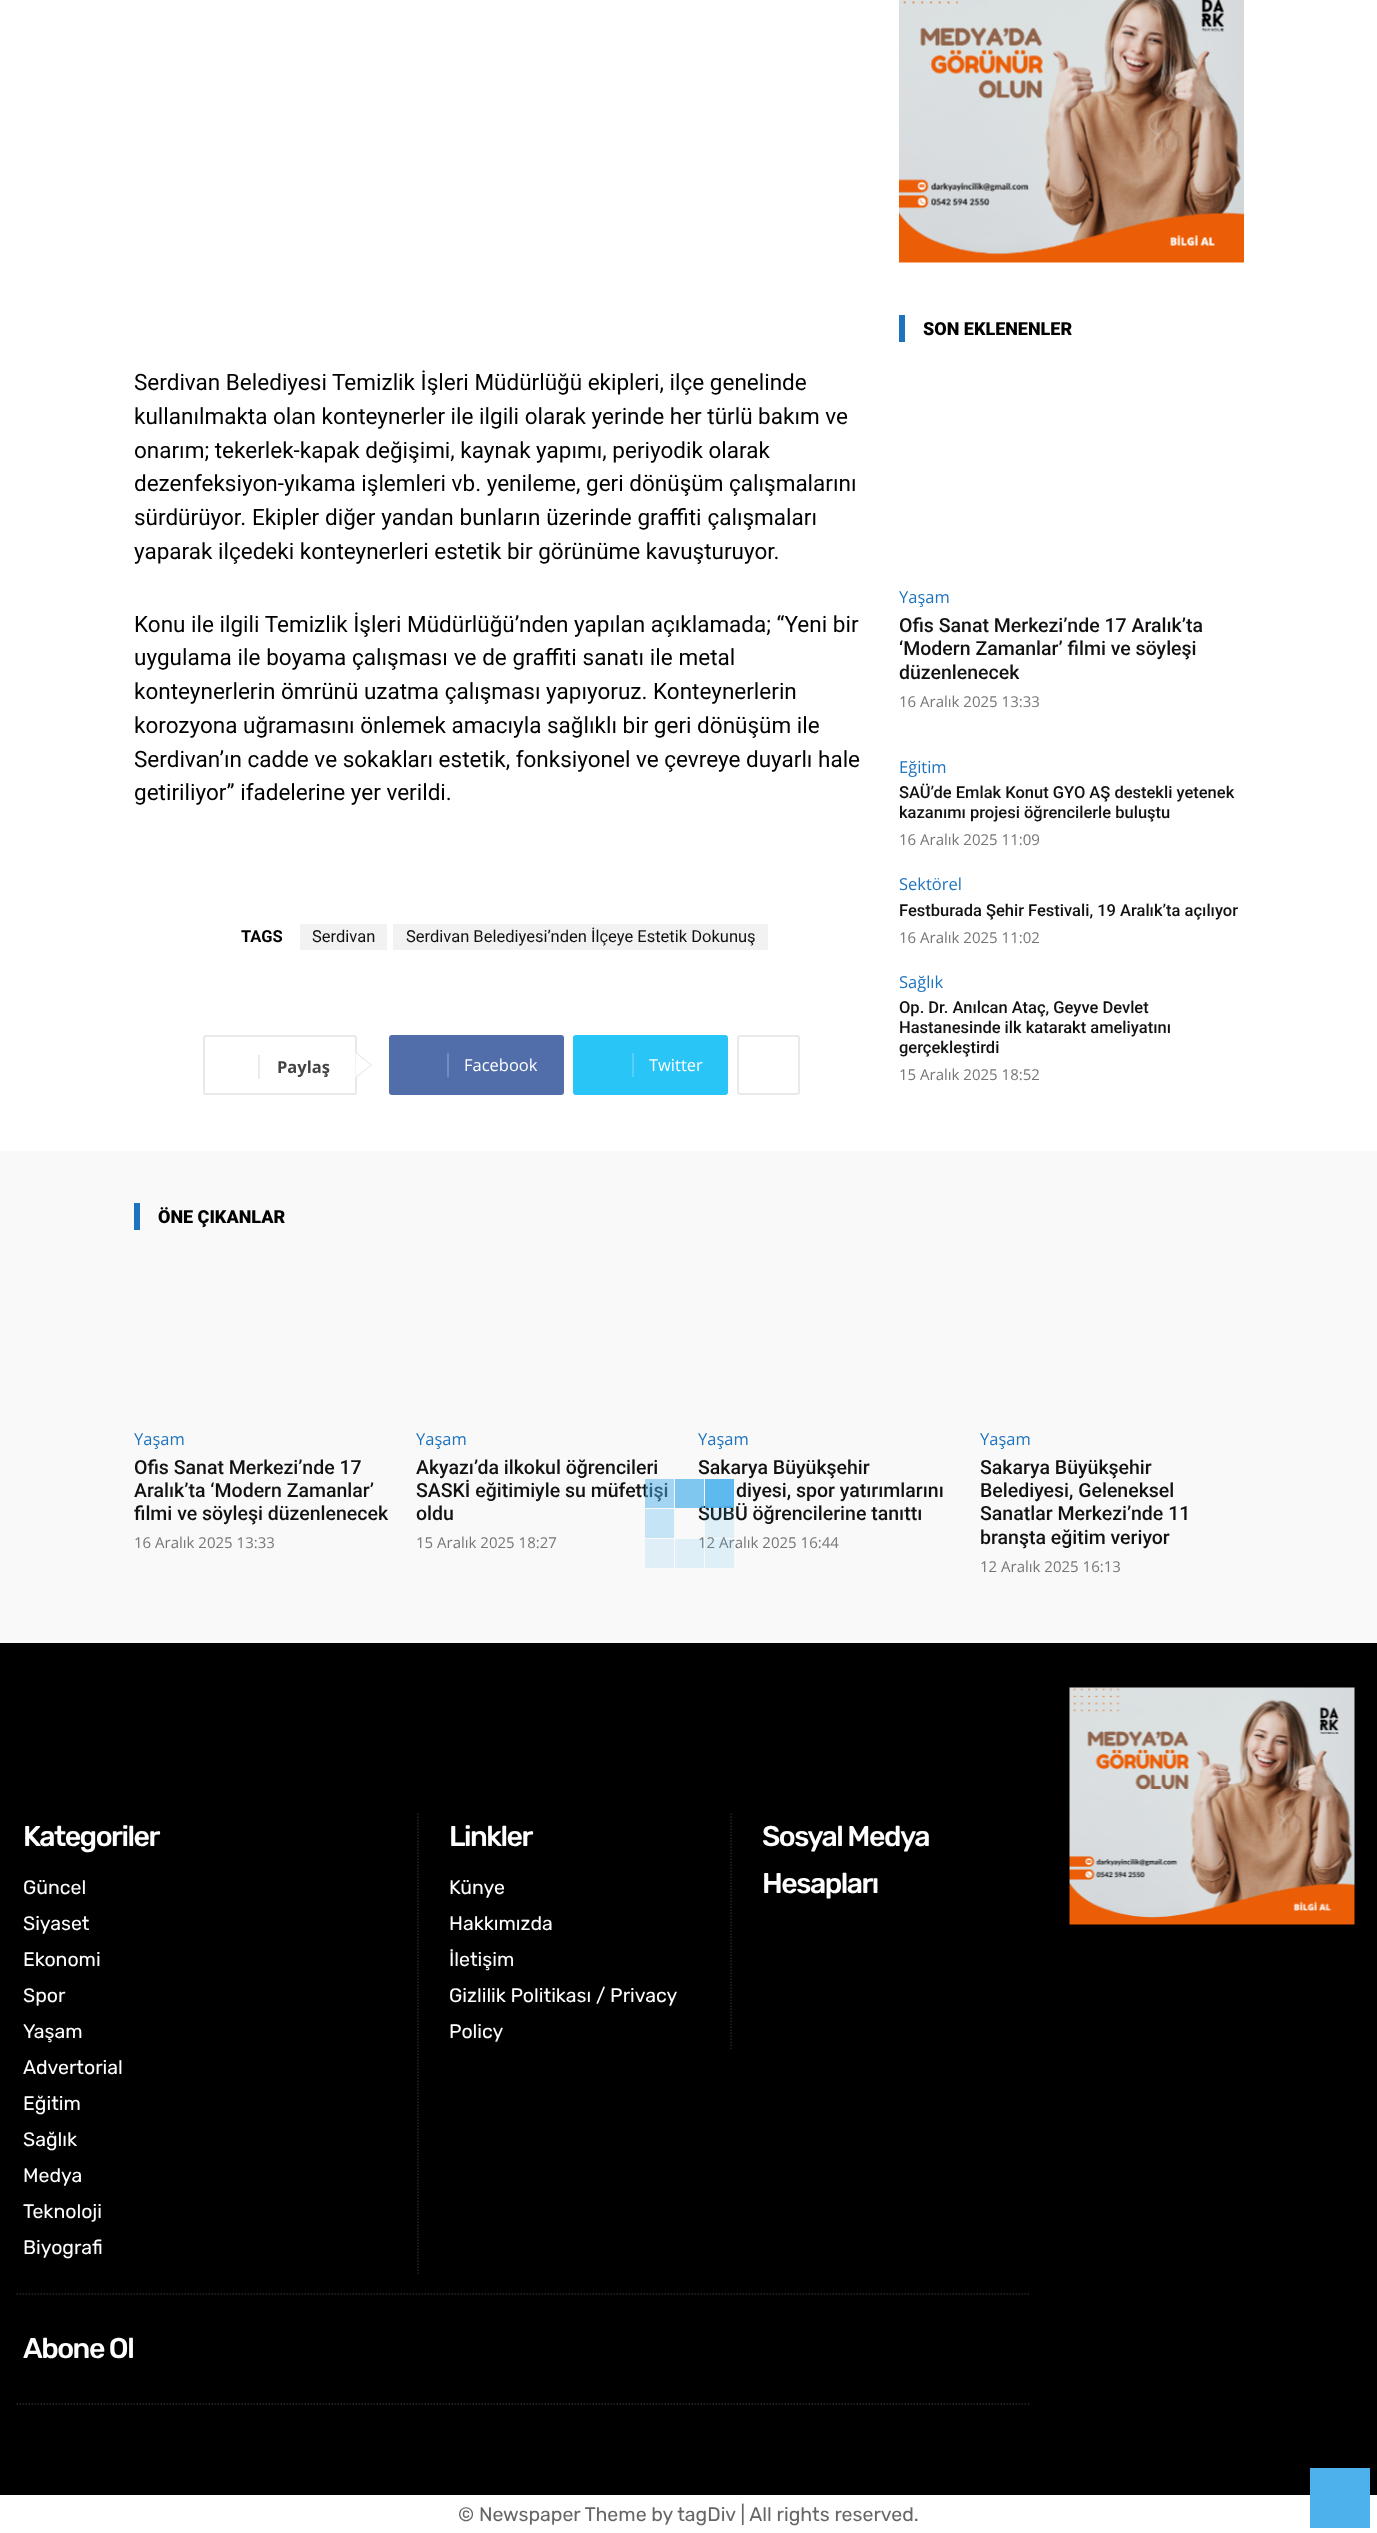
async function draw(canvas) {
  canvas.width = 1377;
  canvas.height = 2533;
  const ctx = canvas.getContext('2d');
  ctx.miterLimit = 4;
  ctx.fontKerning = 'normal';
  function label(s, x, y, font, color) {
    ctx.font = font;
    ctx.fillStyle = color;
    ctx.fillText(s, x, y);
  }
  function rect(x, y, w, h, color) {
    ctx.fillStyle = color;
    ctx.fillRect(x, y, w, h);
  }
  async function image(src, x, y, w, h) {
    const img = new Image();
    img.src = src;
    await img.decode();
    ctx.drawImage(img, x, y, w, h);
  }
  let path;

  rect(0, 0, 1377, 2533, '#fff');
  label('Serdivan Belediyesi Temizlik İşleri Müdürlüğü ekipleri, ilçe genelinde', 134, 390, '22.5px Roboto', '#000');
  label('kullanılmakta olan konteynerler ile ilgili olarak yerinde her türlü bakım ve', 134, 424, '22.5px Roboto', '#000');
  label('onarım; tekerlek-kapak değişimi, kaynak yapımı, periyodik olarak', 134, 458, '22.5px Roboto', '#000');
  label('dezenfeksiyon-yıkama işlemleri vb. yenileme, geri dönüşüm çalışmalarını', 134, 491, '22.5px Roboto', '#000');
  ctx.wordSpacing = '0.25px';
  label('sürdürüyor. Ekipler diğer yandan bunların üzerinde graffiti çalışmaları', 134, 525, '22.5px Roboto', '#000');
  ctx.wordSpacing = '0px';
  label('yaparak ilçedeki konteynerleri estetik bir görünüme kavuşturuyor.', 134, 559, '22.5px Roboto', '#000');
  label('Konu ile ilgili Temizlik İşleri Müdürlüğü’nden yapılan açıklamada; “Yeni bir', 134, 632, '22.5px Roboto', '#000');
  ctx.wordSpacing = '0.25px';
  label('uygulama ile boyama çalışması ve de graffiti sanatı ile metal', 134, 665, '22.5px Roboto', '#000');
  ctx.wordSpacing = '0px';
  label('konteynerlerin ömrünü uzatma çalışması yapıyoruz. Konteynerlerin', 134, 699, '22.5px Roboto', '#000');
  label('korozyona uğramasını önlemek amacıyla sağlıklı bir geri dönüşüm ile', 134, 733, '22.5px Roboto', '#000');
  label('Serdivan’ın cadde ve sokakları estetik, fonksiyonel ve çevreye duyarlı hale', 134, 767, '22.5px Roboto', '#000');
  label('getiriliyor” ifadelerine yer verildi.', 134, 800, '22.5px Roboto', '#000');
  label('TAGS', 241, 942, 'bold 16.5px Roboto', '#000');
  rect(300, 924, 87, 26, '#f2f2f2');
  label('Serdivan', 312, 942, '16.5px Roboto', '#111');
  rect(393, 924, 375, 26, '#f2f2f2');
  label('Serdivan Belediyesi’nden İlçeye Estetik Dokunuş', 406, 942, '16.5px Roboto', '#111');
  ctx.beginPath();
  ctx.roundRect(204, 1036, 152, 58, 2);
  ctx.strokeStyle = '#e9e9e9';
  ctx.lineWidth = 2;
  ctx.stroke();
  ctx.fillStyle = '#e9e9e9';
  path = new Path2D('M355.5 1078.5V1051.5L372 1065Z');
  ctx.fill(path);
  rect(258, 1055, 2, 24, '#ebebeb');
  label('Paylaş', 277, 1073, 'bold 16.5px Open Sans', '#444');
  ctx.fillStyle = '#fff';
  path = new Path2D('M355.5 1077V1053L370.5 1065Z');
  ctx.fill(path);
  ctx.fillStyle = '#516eab';
  ctx.beginPath();
  ctx.roundRect(447, 1035, 117, 60, [0, 3, 3, 0]);
  ctx.fill();
  ctx.beginPath();
  ctx.roundRect(389, 1035, 67, 60, [3, 0, 0, 3]);
  ctx.fill();
  rect(447, 1053, 2, 24, '#748bbc');
  label('Facebook', 464, 1071, '16.5px Open Sans', '#fff');
  ctx.fillStyle = '#29c5f6';
  ctx.beginPath();
  ctx.roundRect(632, 1035, 96, 60, [0, 3, 3, 0]);
  ctx.fill();
  ctx.beginPath();
  ctx.roundRect(573, 1035, 68, 60, [3, 0, 0, 3]);
  ctx.fill();
  rect(632, 1053, 2, 24, '#54d1f8');
  label('Twitter', 649, 1071, '16.5px Open Sans', '#fff');
  ctx.beginPath();
  ctx.roundRect(738, 1036, 61, 58, 2);
  ctx.stroke();
  await image('assets/img1.png', 899, 0, 345, 263);
  rect(899, 315, 6, 27, '#1e73be');
  label('SON EKLENENLER', 923, 335, '900 18px Roboto', '#000');
  label('Yaşam', 899, 603, '16.5px Open Sans', '#1e73be');
  label('Ofis Sanat Merkezi’nde 17 Aralık’ta', 899, 632, '500 19.5px Roboto', '#111');
  label('‘Modern Zamanlar’ filmi ve söyleşi', 899, 655, '500 19.5px Roboto', '#111');
  label('düzenlenecek', 899, 679, '500 19.5px Roboto', '#111');
  label('16 Aralık 2025 13:33', 899, 707, '15px Open Sans', '#767676');
  label('Eğitim', 899, 773, '16.5px Open Sans', '#1e73be');
  label('SAÜ’de Emlak Konut GYO AŞ destekli yetenek', 899, 798, '500 16.5px Roboto', '#111');
  label('kazanımı projesi öğrencilerle buluştu', 899, 818, '500 16.5px Roboto', '#111');
  label('16 Aralık 2025 11:09', 899, 845, '15px Open Sans', '#767676');
  label('Sektörel', 899, 890, '16.5px Open Sans', '#1e73be');
  label('Festburada Şehir Festivali, 19 Aralık’ta açılıyor', 899, 916, '500 16.5px Roboto', '#111');
  label('16 Aralık 2025 11:02', 899, 943, '15px Open Sans', '#767676');
  label('Sağlık', 899, 988, '16.5px Open Sans', '#1e73be');
  label('Op. Dr. Anılcan Ataç, Geyve Devlet', 899, 1013, '500 16.5px Roboto', '#111');
  label('Hastanesinde ilk katarakt ameliyatını', 899, 1033, '500 16.5px Roboto', '#111');
  label('gerçekleştirdi', 899, 1053, '500 16.5px Roboto', '#111');
  label('15 Aralık 2025 18:52', 899, 1080, '15px Open Sans', '#767676');
  rect(0, 1151, 1377, 492, '#f9f9f9');
  rect(134, 1203, 6, 27, '#1e73be');
  label('ÖNE ÇIKANLAR', 158, 1223, '900 18px Roboto', '#000');
  label('Yaşam', 134, 1445, '16.5px Open Sans', '#1e73be');
  label('Ofis Sanat Merkezi’nde 17', 134, 1474, '500 19.5px Roboto', '#111');
  label('Aralık’ta ‘Modern Zamanlar’', 134, 1497, '500 19.5px Roboto', '#111');
  label('filmi ve söyleşi düzenlenecek', 134, 1520, '500 19.5px Roboto', '#111');
  label('16 Aralık 2025 13:33', 134, 1548, '15px Open Sans', '#767676');
  label('Yaşam', 416, 1445, '16.5px Open Sans', '#1e73be');
  label('Akyazı’da ilkokul öğrencileri', 416, 1474, '500 19.5px Roboto', '#111');
  label('SASKİ eğitimiyle su müfettişi', 416, 1497, '500 19.5px Roboto', '#111');
  label('oldu', 416, 1520, '500 19.5px Roboto', '#111');
  label('15 Aralık 2025 18:27', 416, 1548, '15px Open Sans', '#767676');
  label('Yaşam', 698, 1445, '16.5px Open Sans', '#1e73be');
  label('Sakarya Büyükşehir', 698, 1474, '500 19.5px Roboto', '#111');
  label('diyesi, spor yatırımlarını', 736, 1497, '500 19.5px Roboto', '#111');
  label('SUBÜ öğrencilerine tanıttı', 698, 1520, '500 19.5px Roboto', '#111');
  label('12 Aralık 2025 16:44', 698, 1548, '15px Open Sans', '#767676');
  label('Yaşam', 980, 1445, '16.5px Open Sans', '#1e73be');
  label('Sakarya Büyükşehir', 980, 1474, '500 19.5px Roboto', '#111');
  label('Belediyesi, Geleneksel', 980, 1497, '500 19.5px Roboto', '#111');
  label('Sanatlar Merkezi’nde 11', 980, 1520, '500 19.5px Roboto', '#111');
  label('branşta eğitim veriyor', 980, 1544, '500 19.5px Roboto', '#111');
  label('12 Aralık 2025 16:13', 980, 1572, '15px Open Sans', '#767676');
  rect(645, 1479, 29, 29, '#4db2ec80');
  rect(675, 1479, 29, 29, '#4db2ecb3');
  rect(705, 1479, 29, 29, '#4db2ece6');
  rect(645, 1509, 29, 29, '#c5e4f5');
  rect(705, 1509, 29, 29, '#4db2ec26');
  rect(645, 1539, 29, 29, '#dfeef7');
  rect(675, 1539, 29, 29, '#4db2ec26');
  rect(705, 1539, 29, 29, '#4db2ec26');
  rect(0, 1643, 1377, 852, '#000');
  path = new Path2D('M418 1813.5V2275.5');
  ctx.strokeStyle = '#262626';
  ctx.lineWidth = 1.5;
  ctx.setLineDash([1.5, 1.5]);
  ctx.stroke(path);
  ctx.letterSpacing = '-1.5px';
  label('Kategoriler', 23, 1846, '500 28.5px Rubik', '#fff');
  ctx.letterSpacing = '0px';
  label('Güncel', 23, 1894, '19.5px Rubik', '#fff');
  label('Siyaset', 23, 1930, '19.5px Rubik', '#fff');
  label('Ekonomi', 23, 1966, '19.5px Rubik', '#fff');
  label('Spor', 23, 2002, '19.5px Rubik', '#fff');
  label('Yaşam', 23, 2038, '19.5px Rubik', '#fff');
  label('Advertorial', 23, 2074, '19.5px Rubik', '#fff');
  label('Eğitim', 23, 2110, '19.5px Rubik', '#fff');
  label('Sağlık', 23, 2146, '19.5px Rubik', '#fff');
  label('Medya', 23, 2182, '19.5px Rubik', '#fff');
  label('Teknoloji', 23, 2218, '19.5px Rubik', '#fff');
  label('Biyografi', 23, 2254, '19.5px Rubik', '#fff');
  path = new Path2D('M731 1813.5V2050.5');
  ctx.stroke(path);
  ctx.letterSpacing = '-1.5px';
  label('Linkler', 449, 1846, '500 28.5px Rubik', '#fff');
  ctx.letterSpacing = '0px';
  label('Künye', 449, 1894, '19.5px Rubik', '#fff');
  label('Hakkımızda', 449, 1930, '19.5px Rubik', '#fff');
  label('İletişim', 449, 1966, '19.5px Rubik', '#fff');
  label('Gizlilik Politikası / Privacy', 449, 2002, '19.5px Rubik', '#fff');
  label('Policy', 449, 2038, '19.5px Rubik', '#fff');
  label('￼', 503, 2038, '19.5px Liberation Serif', '#fff');
  ctx.letterSpacing = '-1.5px';
  label('Sosyal Medya', 762, 1846, '500 28.5px Rubik', '#fff');
  label('Hesapları', 762, 1893, '500 28.5px Rubik', '#fff');
  path = new Path2D('M16.5 2294H1030.5');
  ctx.stroke(path);
  path = new Path2D('M16.5 2404H1030.5');
  ctx.stroke(path);
  label('Abone Ol', 23, 2358, '500 28.5px Rubik', '#fff');
  await image('assets/img2.png', 1069, 1687, 286, 238);
  ctx.letterSpacing = '0px';
  label('© Newspaper Theme by tagDiv | All rights reserved.', 458, 2521, '19.5px Rubik', '#666');
  rect(1310, 2468, 60, 60, '#4db2ec');
}

draw(document.querySelector('canvas'));
